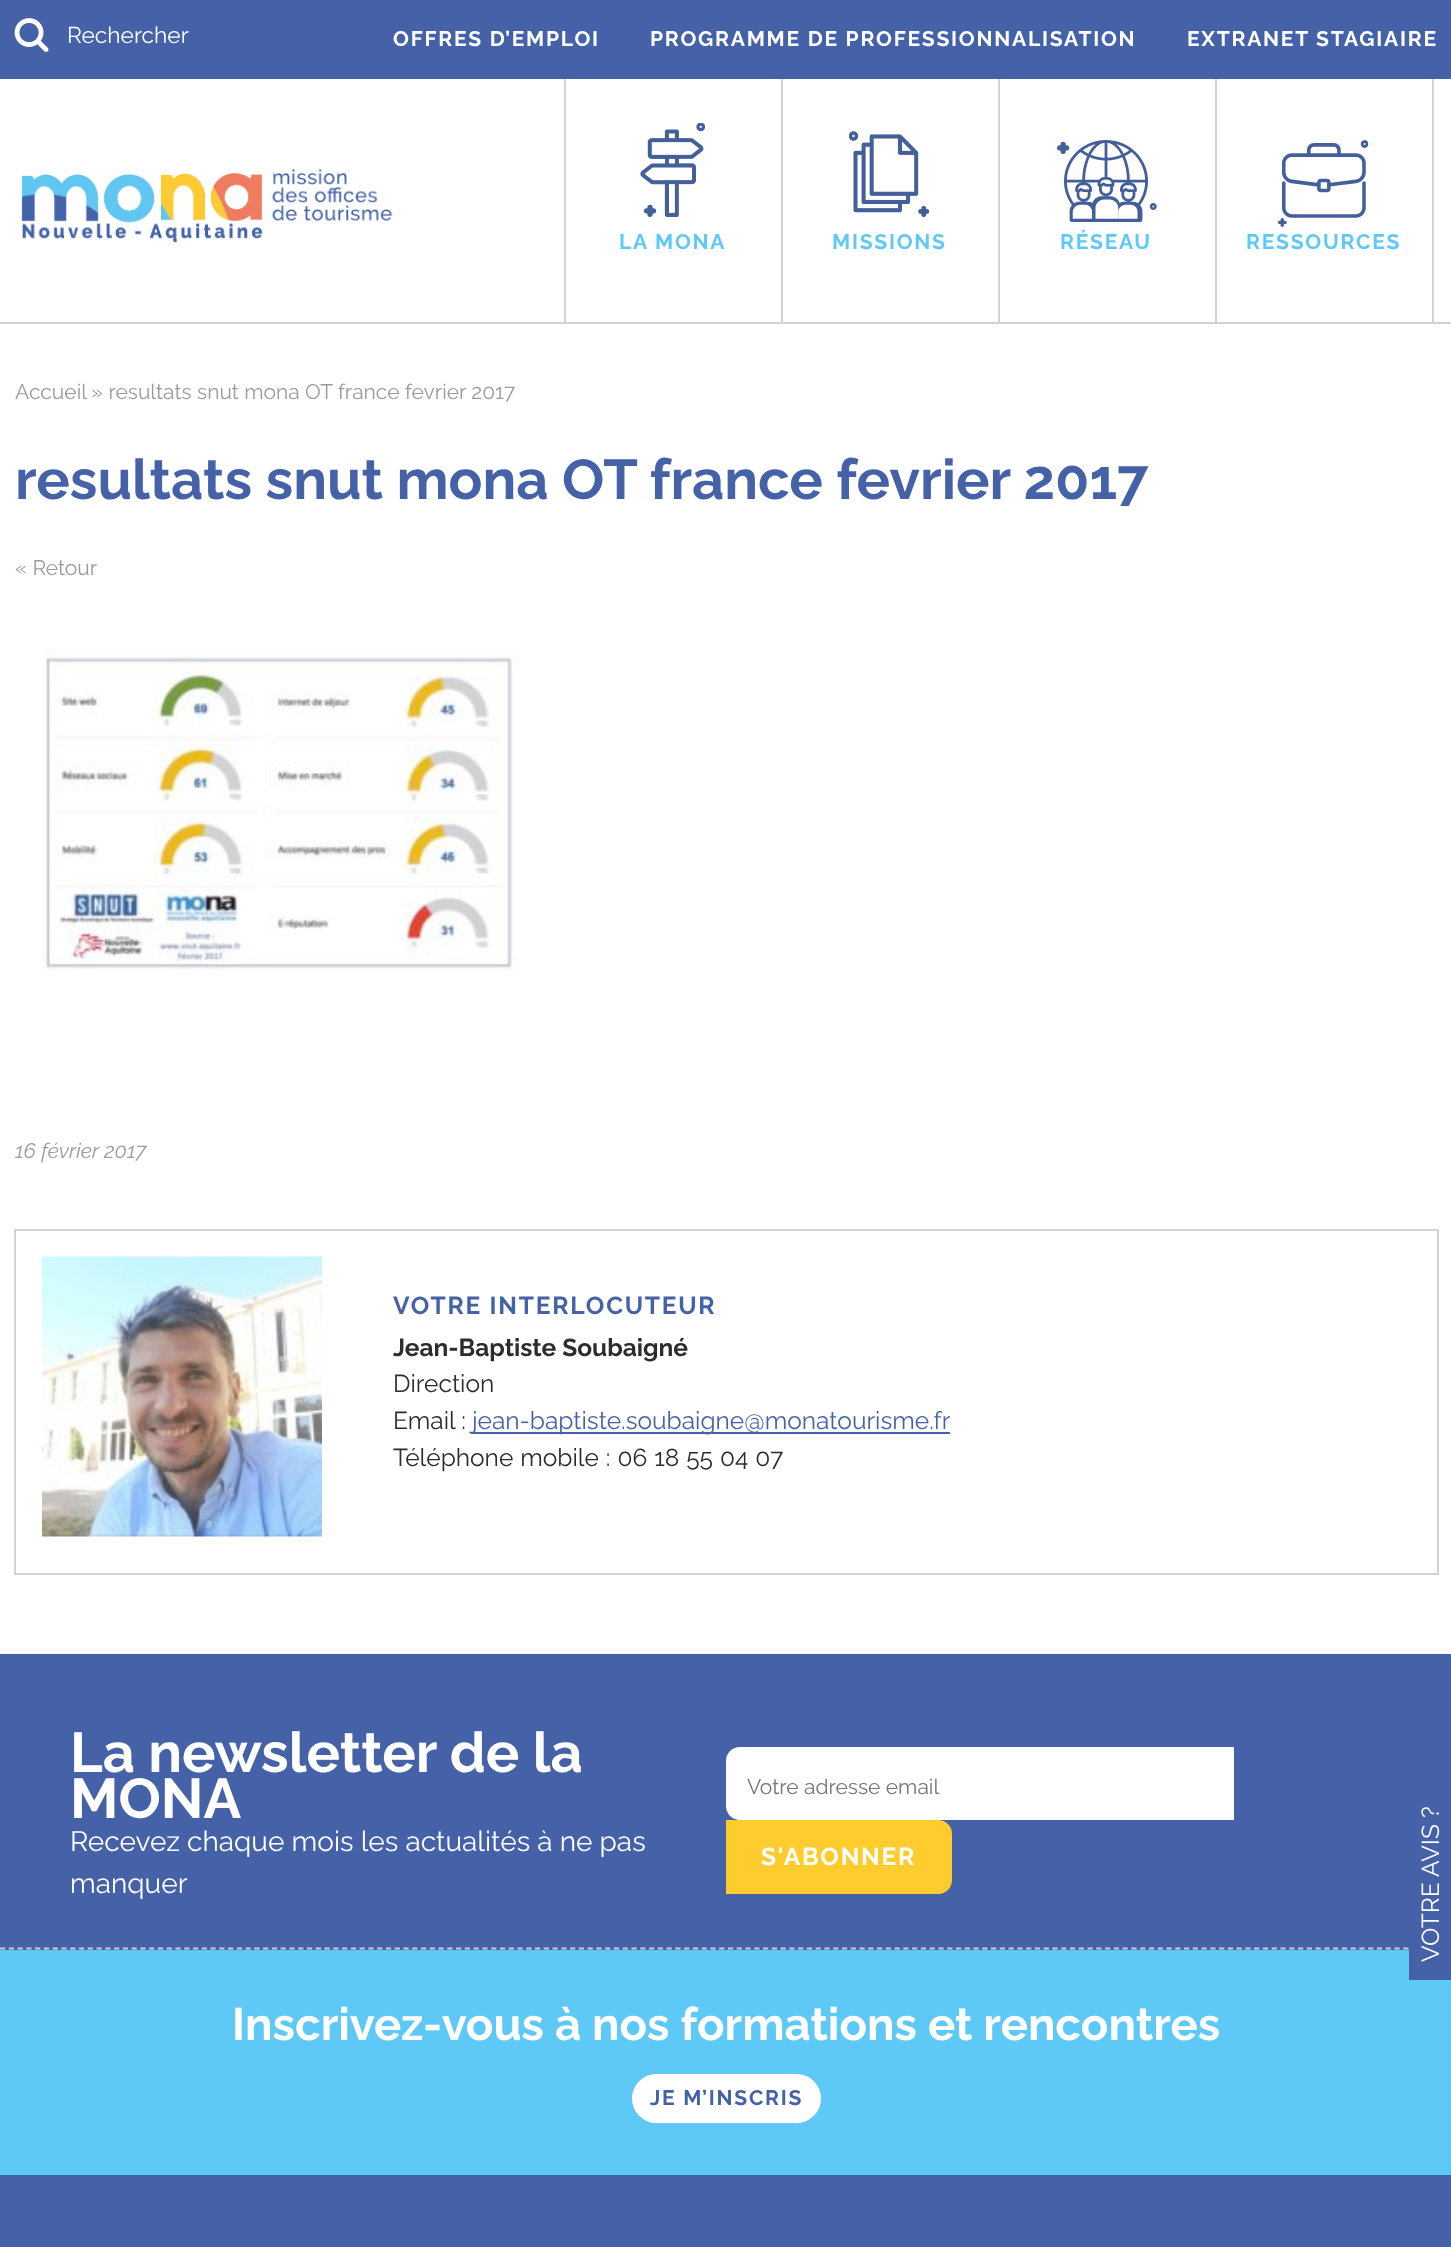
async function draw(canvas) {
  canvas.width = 1451;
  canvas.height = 2247;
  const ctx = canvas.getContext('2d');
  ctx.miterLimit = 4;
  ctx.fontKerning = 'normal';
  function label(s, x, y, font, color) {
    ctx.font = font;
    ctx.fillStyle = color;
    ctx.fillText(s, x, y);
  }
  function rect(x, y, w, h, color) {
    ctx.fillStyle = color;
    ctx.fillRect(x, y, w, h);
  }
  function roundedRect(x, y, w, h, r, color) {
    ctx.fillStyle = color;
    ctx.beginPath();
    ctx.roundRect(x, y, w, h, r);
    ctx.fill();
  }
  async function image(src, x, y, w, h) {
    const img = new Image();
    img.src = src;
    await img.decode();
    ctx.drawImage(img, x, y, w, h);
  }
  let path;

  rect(0, 0, 1451, 2247, '#fff');
  rect(0, 0, 1451, 79, '#4562a8');
  await image('assets/img1.png', 14, 18, 35, 34);
  label('Rechercher', 67, 43, '22.75px Raleway', '#fff');
  ctx.letterSpacing = '1.75px';
  label('OFFRES D’EMPLOI', 393, 46, 'bold 21px Raleway', '#fff');
  label('PROGRAMME DE PROFESSIONNALISATION', 650, 46, 'bold 21px Raleway', '#fff');
  label('EXTRANET STAGIAIRE', 1187, 46, 'bold 21px Raleway', '#fff');
  rect(0, 322, 1451, 2, '#d3d3d3');
  await image('assets/img2.png', 21, 168, 372, 75);
  rect(781, 79, 2, 245, '#d3d3d3');
  rect(564, 79, 2, 245, '#d3d3d3');
  await image('assets/img3.png', 640, 123, 65, 94);
  label('LA MONA', 619, 249, 'bold 21px Raleway', '#5ec9f7');
  rect(998, 79, 2, 245, '#d3d3d3');
  await image('assets/img4.png', 849, 131, 80, 86);
  label('MISSIONS', 832, 249, 'bold 21px Raleway', '#5ec9f7');
  rect(1215, 79, 2, 245, '#d3d3d3');
  await image('assets/img5.png', 1057, 140, 100, 82);
  label('RÉSEAU', 1060, 249, 'bold 21px Raleway', '#5ec9f7');
  rect(1432, 79, 2, 245, '#d3d3d3');
  await image('assets/img6.png', 1278, 140, 91, 87);
  label('RESSOURCES', 1246, 249, 'bold 21px Raleway', '#5ec9f7');
  ctx.letterSpacing = '0px';
  label('Accueil', 15, 399, '21px Raleway', '#9b9b9b');
  label('» resultats snut mona OT france fevrier 2017', 91, 399, '21px Raleway', '#9b9b9b');
  label('resultats snut mona OT france fevrier 2017', 15, 499, 'bold 56px Raleway', '#4562a8');
  label('« Retour', 15, 575, '21px Raleway', '#9b9b9b');
  await image('assets/img7.png', 45, 650, 473, 321);
  label('16 février 2017', 15, 1158, 'italic 100 21px Raleway', '#9b9b9b');
  ctx.strokeStyle = '#d3d3d3';
  ctx.lineWidth = 2;
  ctx.strokeRect(15, 1230, 1423, 344);
  await image('assets/img8.png', 42, 1256, 280, 281);
  ctx.letterSpacing = '1.75px';
  label('VOTRE INTERLOCUTEUR', 393, 1314, 'bold 24.5px Raleway', '#4562a8');
  ctx.letterSpacing = '0px';
  label('Jean-Baptiste Soubaigné', 393, 1356, 'bold 24.5px Raleway', '#2c2c2c');
  label('Direction', 393, 1392, '24.5px Raleway', '#2c2c2c');
  label('Email :', 393, 1429, '24.5px Raleway', '#2c2c2c');
  rect(471, 1432, 479, 2, '#4562a8');
  label('jean-baptiste.soubaigne@monatourisme.fr', 472, 1429, '24.5px Raleway', '#4562a8');
  ctx.wordSpacing = '0.75px';
  label('Téléphone mobile : 06 18 55 04 07', 393, 1466, '24.5px Raleway', '#2c2c2c');
  rect(0, 1654, 1451, 296, '#4562a8');
  path = new Path2D('M0 1948.5H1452.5');
  ctx.strokeStyle = '#ccc';
  ctx.lineWidth = 1.8;
  ctx.setLineDash([5.25, 3.52]);
  ctx.stroke(path);
  ctx.wordSpacing = '0px';
  label('La newsletter de la', 70, 1772, 'bold 56px Raleway', '#fff');
  label('MONA', 70, 1818, 'bold 56px Raleway', '#fff');
  label('Recevez chaque mois les actualités à ne pas', 70, 1851, '28px Raleway', '#fff');
  label('manquer', 70, 1893, '28px Raleway', '#fff');
  ctx.beginPath();
  ctx.roundRect(726, 1747, 508, 73, [14, 0, 0, 14]);
  ctx.fill();
  label('Votre adresse email', 747, 1794, '21px Raleway', '#757575');
  ctx.fillStyle = '#ffcc2e';
  ctx.beginPath();
  ctx.roundRect(726, 1820, 226, 74, [0, 14, 14, 0]);
  ctx.fill();
  ctx.letterSpacing = '1.75px';
  label('S\'ABONNER', 761, 1865, 'bold 24.5px Raleway', '#fff');
  rect(0, 2175, 1451, 72, '#4562a8');
  rect(0, 1950, 1451, 225, '#5ec9f7');
  rect(1409, 1947, 42, 33, '#4562a8');
  ctx.letterSpacing = '0px';
  ctx.font = '24.5px Raleway';
  ctx.fillStyle = '#fff';
  ctx.save();
  ctx.translate(1439, 1962);
  ctx.rotate(-90 * Math.PI / 180);
  ctx.fillText('VOTRE AVIS ?', 0, 0);
  ctx.restore();
  label('Inscrivez-vous à nos formations et rencontres', 232, 2040, 'bold 45.5px Raleway', '#fff');
  roundedRect(632, 2074, 189, 49, 24.5, '#fff');
  ctx.letterSpacing = '1.75px';
  label('JE M’INSCRIS', 650, 2105, 'bold 21px Raleway', '#4562a8');
}

draw(document.querySelector('canvas'));
